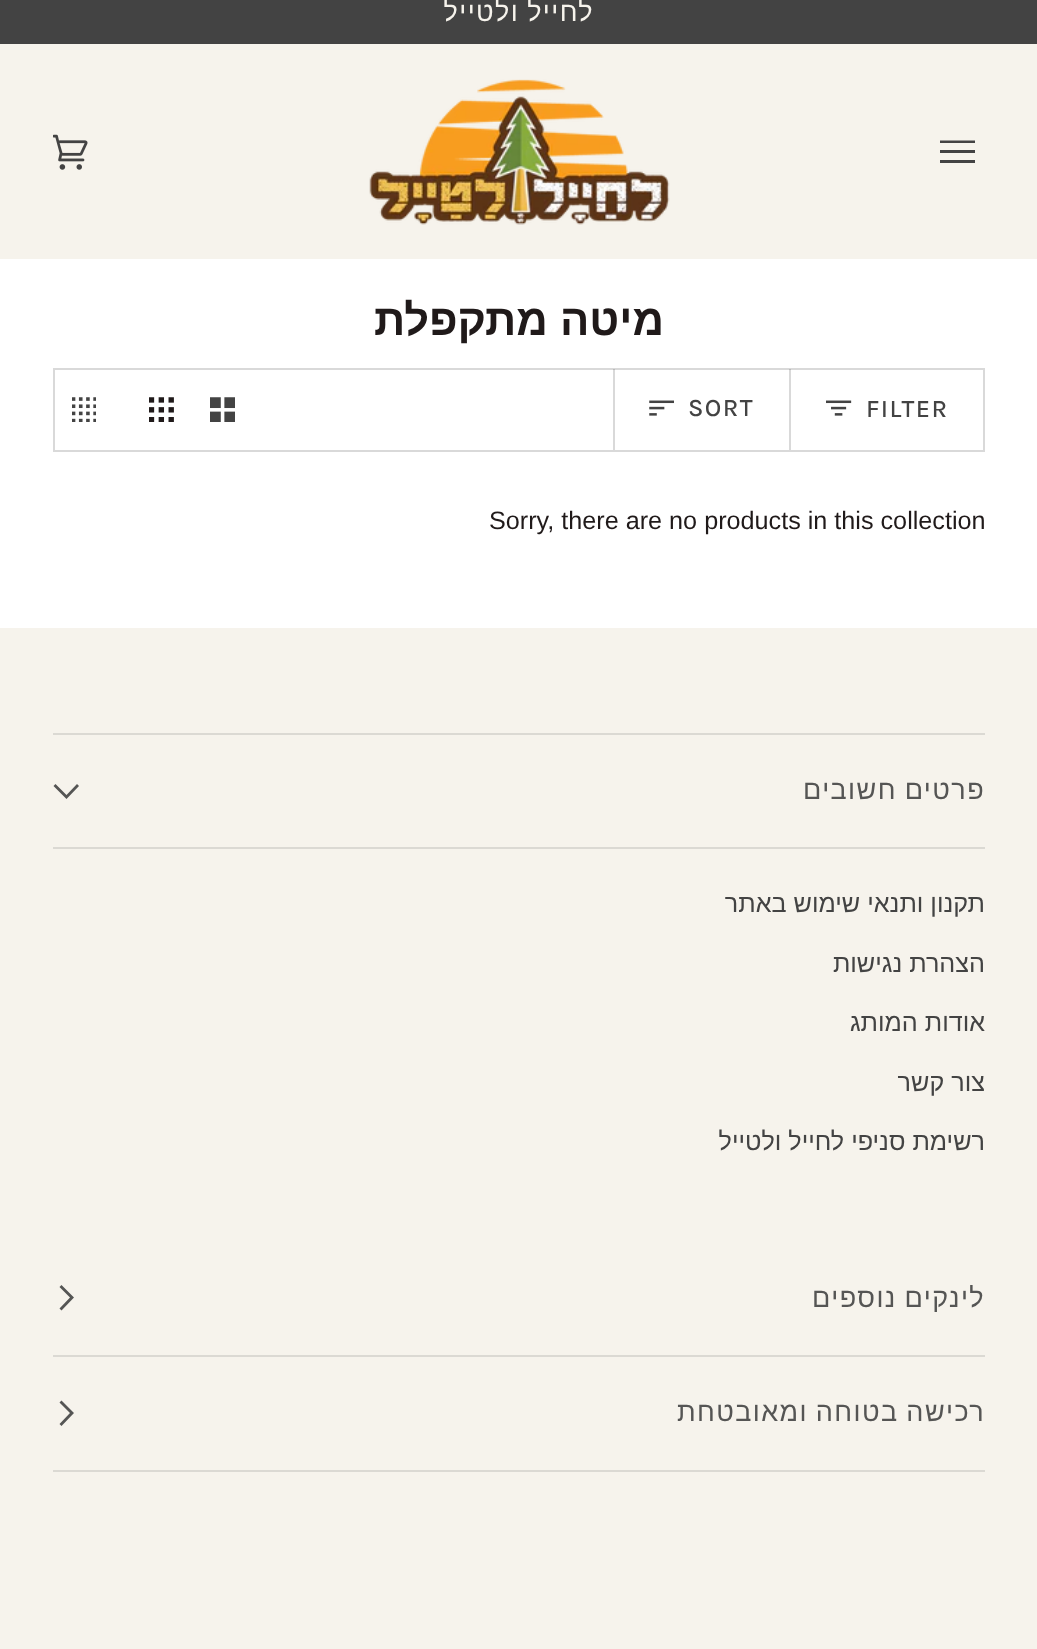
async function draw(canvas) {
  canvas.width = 1037;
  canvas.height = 1649;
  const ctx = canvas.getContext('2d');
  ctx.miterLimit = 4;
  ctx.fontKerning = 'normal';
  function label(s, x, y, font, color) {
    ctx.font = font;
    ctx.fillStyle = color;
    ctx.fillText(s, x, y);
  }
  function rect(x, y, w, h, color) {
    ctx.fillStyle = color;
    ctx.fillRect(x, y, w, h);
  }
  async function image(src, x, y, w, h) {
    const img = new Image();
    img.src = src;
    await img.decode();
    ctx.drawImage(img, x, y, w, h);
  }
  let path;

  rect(0, 0, 1037, 1649, '#fff');
  rect(0, 0, 1037, 44, '#434343');
  ctx.letterSpacing = '1.4px';
  ctx.wordSpacing = '-1px';
  ctx.direction = 'rtl';
  label('לחייל ולטייל', 594, 21, '27px Liberation Sans', '#f6f3ec');
  rect(0, 44, 1037, 215, '#f6f3ec');
  ctx.fillStyle = '#434343';
  path = new Path2D('M940 140.5H975V143H940ZM940 150H975V153H940ZM940 160H975V163H940Z');
  ctx.fill(path);
  await image('assets/img1.png', 369, 79, 301, 146);
  await image('assets/img2.png', 53, 134, 35, 36);
  ctx.letterSpacing = '0px';
  ctx.wordSpacing = '0px';
  label('מיטה מתקפלת', 664, 335, 'bold 43.5px Liberation Sans', '#201a1a');
  ctx.strokeStyle = '#d9d9d9';
  ctx.lineWidth = 2;
  ctx.strokeRect(54, 369, 930, 82);
  rect(789, 369, 2, 81, '#43434333');
  ctx.letterSpacing = '1.4px';
  ctx.direction = 'ltr';
  label('FILTER', 866, 417, '500 25px Karla', '#434343');
  await image('assets/img3.png', 826, 400, 26, 16);
  rect(613, 369, 2, 81, '#43434333');
  label('SORT', 688, 416, '500 25px Karla', '#434343');
  await image('assets/img4.png', 649, 400, 25, 16);
  await image('assets/img5.png', 210, 397, 25, 25);
  await image('assets/img6.png', 149, 397, 25, 25);
  await image('assets/img7.png', 72, 397, 24, 25);
  ctx.letterSpacing = '0px';
  label('Sorry, there are no products in this collection', 489, 529, '25.2px Arimo', '#201a1a');
  rect(0, 628, 1037, 1021, '#f6f3ec');
  rect(53, 733, 932, 2, '#dbd9d3');
  rect(53, 847, 932, 2, '#dbd9d3');
  ctx.letterSpacing = '1.4px';
  ctx.wordSpacing = '-1px';
  ctx.direction = 'rtl';
  label('פרטים חשובים', 985, 799, '27px Liberation Sans', '#555554');
  path = new Path2D('M66.5 795L77 784L79 786L66.5 799L53.5 786L55.5 784Z');
  ctx.fill(path, 'evenodd');
  ctx.letterSpacing = '0px';
  ctx.wordSpacing = '0px';
  label('תקנון ותנאי שימוש באתר', 985, 912, '25.2px Liberation Sans', '#434343');
  label('הצהרת נגישות', 985, 972, '25.2px Liberation Sans', '#434343');
  label('אודות המותג', 985, 1031, '25.2px Liberation Sans', '#434343');
  label('צור קשר', 985, 1091, '25.2px Liberation Sans', '#434343');
  label('רשימת סניפי לחייל ולטייל', 985, 1150, '25.2px Liberation Sans', '#434343');
  rect(53, 1355, 932, 2, '#dbd9d3');
  ctx.letterSpacing = '1.4px';
  ctx.wordSpacing = '-1px';
  label('לינקים נוספים', 985, 1307, '27px Liberation Sans', '#555554');
  path = new Path2D('M70 1297.5L59.5 1287L61.5 1285L74 1297.5L61.5 1310.5L59.5 1308.5Z');
  ctx.fill(path, 'evenodd');
  rect(53, 1470, 932, 2, '#dbd9d3');
  label('רכישה בטוחה ומאובטחת', 985, 1421, '27px Liberation Sans', '#555554');
  path = new Path2D('M70 1413L59.5 1402.5L61.5 1400.5L74 1413L61.5 1426L59.5 1424Z');
  ctx.fill(path, 'evenodd');
}

draw(document.querySelector('canvas'));
